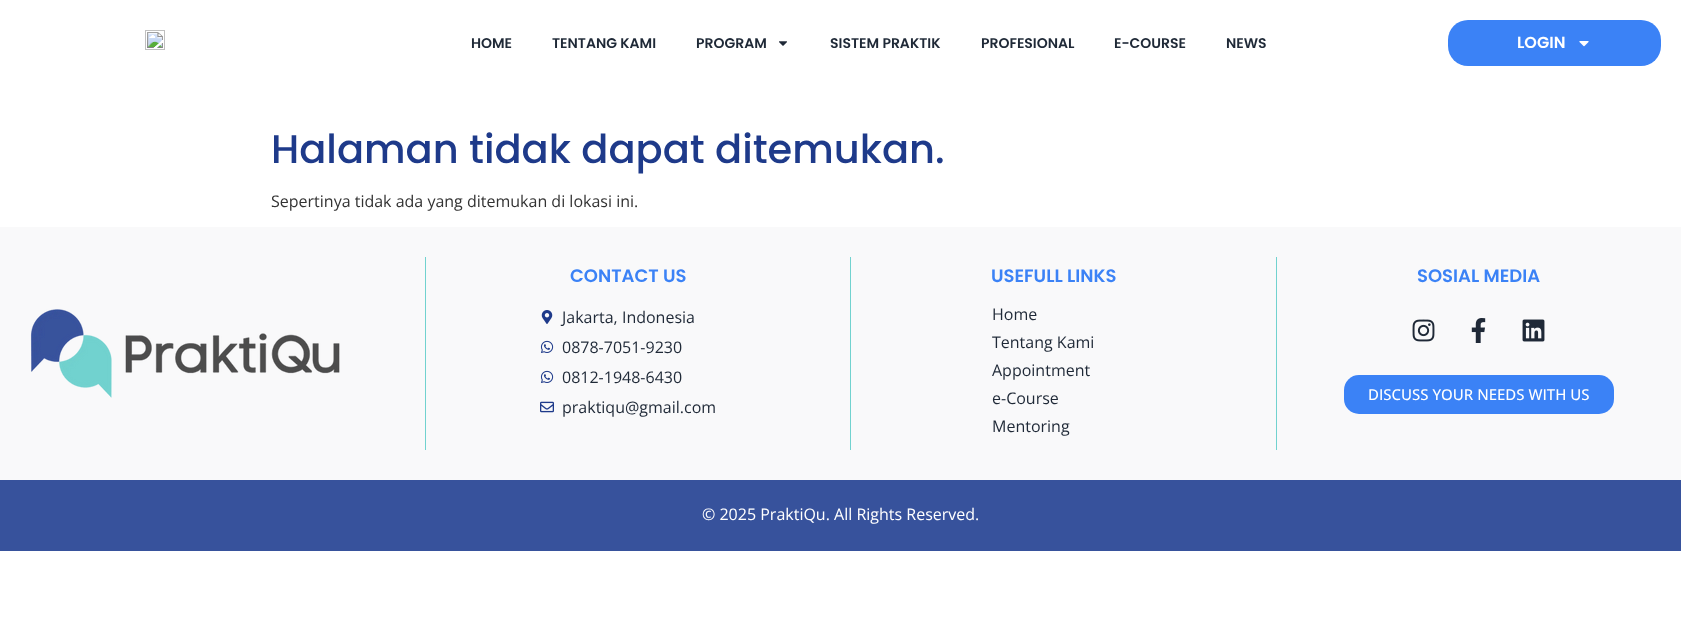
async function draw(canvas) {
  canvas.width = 1681;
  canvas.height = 632;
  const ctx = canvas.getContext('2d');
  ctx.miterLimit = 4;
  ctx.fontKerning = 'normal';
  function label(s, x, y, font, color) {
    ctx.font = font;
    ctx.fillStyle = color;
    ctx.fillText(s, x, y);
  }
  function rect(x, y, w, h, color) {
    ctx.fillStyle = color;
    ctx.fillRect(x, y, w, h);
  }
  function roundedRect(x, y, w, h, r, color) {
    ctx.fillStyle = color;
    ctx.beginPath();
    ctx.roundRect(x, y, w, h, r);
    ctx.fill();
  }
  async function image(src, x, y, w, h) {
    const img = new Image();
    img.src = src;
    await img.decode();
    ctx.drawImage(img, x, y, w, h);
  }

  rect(0, 0, 1681, 632, '#fff');
  await image('assets/img1.png', 145, 30, 20, 20);
  label('HOME', 471, 48, '600 14px Poppins', '#1f2937');
  label('TENTANG KAMI', 552, 48, '600 14px Poppins', '#1f2937');
  label('PROGRAM', 696, 48, '600 14px Poppins', '#1f2937');
  await image('assets/img2.png', 779, 41, 8, 5);
  label('SISTEM PRAKTIK', 830, 48, '600 14px Poppins', '#1f2937');
  label('PROFESIONAL', 981, 48, '600 14px Poppins', '#1f2937');
  label('E-COURSE', 1114, 48, '600 14px Poppins', '#1f2937');
  label('NEWS', 1226, 48, '600 14px Poppins', '#1f2937');
  roundedRect(1448, 20, 213, 46, 20, '#3b82f6');
  label('LOGIN', 1517, 48, '600 16px Poppins', '#fff');
  await image('assets/img3.png', 1579, 41, 10, 6);
  label('Halaman tidak dapat ditemukan.', 271, 163, '500 40px Poppins', '#1e3a8a');
  label('Sepertinya tidak ada yang ditemukan di lokasi ini.', 271, 207, '16px Open Sans', '#333');
  rect(0, 227, 1681, 253, '#f9f9fa');
  await image('assets/img4.png', 30, 309, 310, 89);
  rect(425, 257, 1, 193, '#71d2cf');
  label('CONTACT US', 570, 282, '600 18px Poppins', '#3b82f6');
  await image('assets/img5.png', 541, 310, 12, 14);
  label('Jakarta, Indonesia', 562, 323, '16px Open Sans', '#1f2937');
  await image('assets/img6.png', 540, 340, 14, 13);
  label('0878-7051-9230', 562, 353, '16px Open Sans', '#1f2937');
  await image('assets/img6.png', 540, 370, 14, 13);
  label('0812-1948-6430', 562, 383, '16px Open Sans', '#1f2937');
  await image('assets/img7.png', 540, 401, 14, 12);
  label('praktiqu@gmail.com', 562, 413, '16px Open Sans', '#1f2937');
  rect(850, 257, 1, 193, '#71d2cf');
  label('USEFULL LINKS', 991, 282, '600 18px Poppins', '#3b82f6');
  label('Home', 992, 320, '16px Open Sans', '#1f2937');
  label('Tentang Kami', 992, 348, '16px Open Sans', '#1f2937');
  label('Appointment', 992, 376, '16px Open Sans', '#1f2937');
  label('e-Course', 992, 404, '16px Open Sans', '#1f2937');
  label('Mentoring', 992, 432, '16px Open Sans', '#1f2937');
  rect(1276, 257, 1, 193, '#71d2cf');
  label('SOSIAL MEDIA', 1417, 282, '600 18px Poppins', '#3b82f6');
  await image('assets/img8.png', 1412, 319, 23, 23);
  await image('assets/img9.png', 1471, 318, 15, 25);
  await image('assets/img10.png', 1522, 319, 23, 23);
  roundedRect(1344, 375, 270, 39, 15, '#3b82f6');
  label('DISCUSS YOUR NEEDS WITH US', 1368, 400, '500 15px Open Sans', '#fff');
  rect(0, 480, 1681, 71, '#37529c');
  label('© 2025 PraktiQu. All Rights Reserved.', 702, 520, '16px Open Sans', '#fff');
}

draw(document.querySelector('canvas'));
